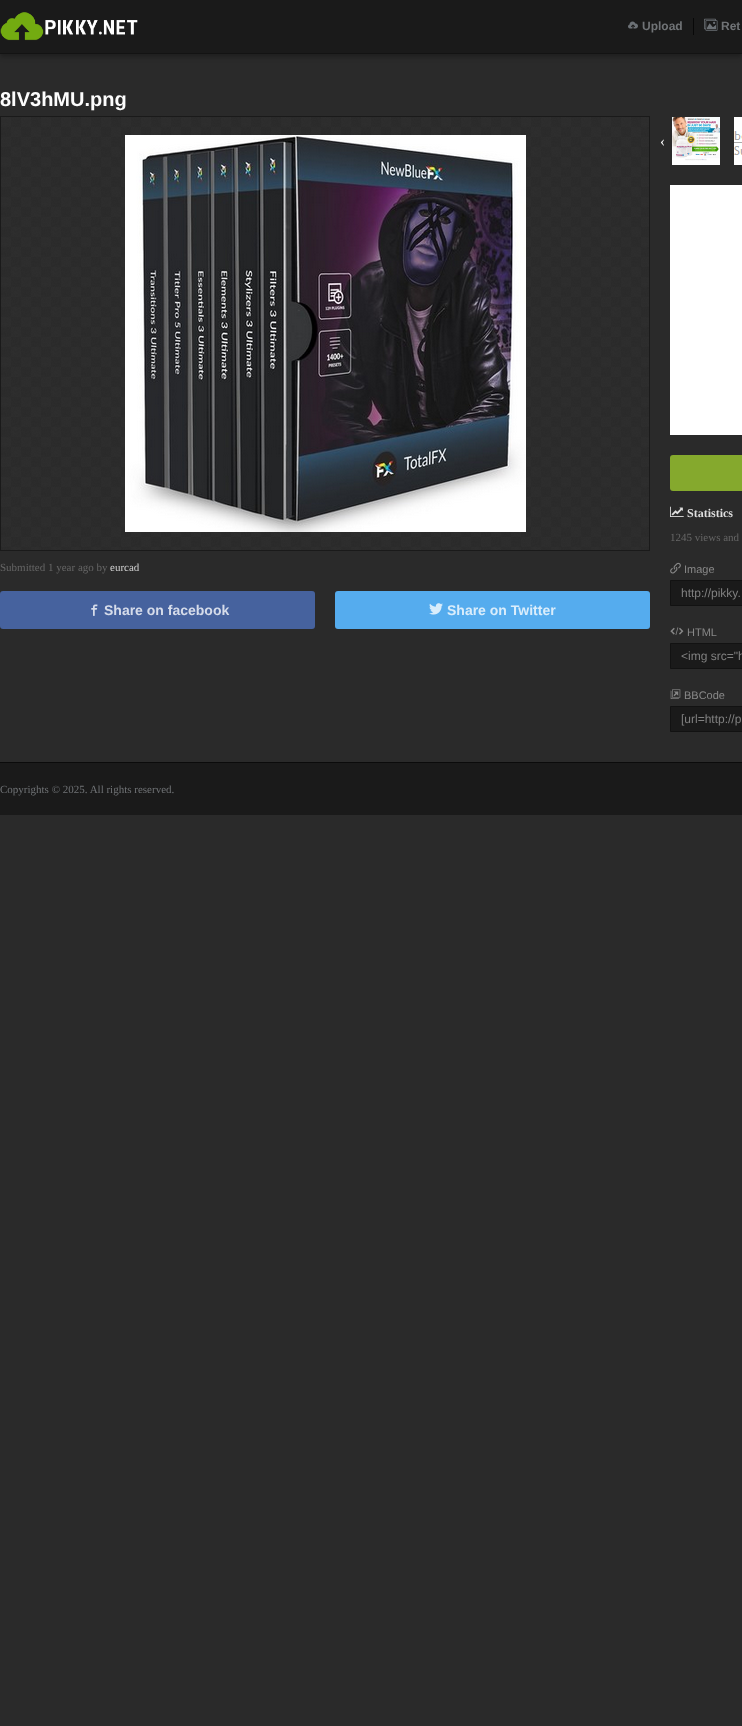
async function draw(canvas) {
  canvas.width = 742;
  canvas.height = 1726;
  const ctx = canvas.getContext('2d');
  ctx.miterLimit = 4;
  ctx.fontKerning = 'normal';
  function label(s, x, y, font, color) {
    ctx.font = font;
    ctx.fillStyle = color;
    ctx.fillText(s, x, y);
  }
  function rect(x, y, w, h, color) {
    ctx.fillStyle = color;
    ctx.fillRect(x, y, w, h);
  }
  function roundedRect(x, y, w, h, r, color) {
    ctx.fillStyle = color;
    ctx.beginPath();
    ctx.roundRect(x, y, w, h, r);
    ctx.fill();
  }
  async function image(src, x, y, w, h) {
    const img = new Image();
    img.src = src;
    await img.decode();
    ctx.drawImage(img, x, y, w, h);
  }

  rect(0, 0, 742, 1726, '#2a2a2a');
  ctx.fillStyle = '#00000047';
  ctx.filter = 'blur(2.5px)';
  ctx.beginPath();
  ctx.rect(0, 3, 742, 54);
  ctx.fill();
  ctx.filter = 'none';
  rect(0, 0, 742, 53, '#1a1a1a');
  rect(0, 53, 742, 1, '#131313');
  await image('assets/img1.png', 0, 12, 138, 29);
  rect(693, 18, 1, 17, '#080808');
  await image('assets/img2.png', 628, 21, 10, 8);
  label('Upload', 642, 30, 'bold 12px Liberation Sans', '#707376');
  await image('assets/img3.png', 704, 18, 14, 13);
  label('Ret', 721, 30, 'bold 12px Liberation Sans', '#707376');
  label('8lV3hMU.png', 0, 106, 'bold 20px Liberation Sans', '#fdfdfd');
  await image('assets/img4.png', 1, 117, 648, 433);
  ctx.strokeStyle = '#1a1a1a';
  ctx.strokeRect(0.5, 116.5, 649, 434);
  await image('assets/img5.png', 125, 135, 401, 397);
  label('‹', 660, 146, '15px Liberation Serif', '#fdfdfd');
  await image('assets/img6.png', 672, 117, 48, 48);
  await image('assets/img7.png', 734, 117, 8, 48);
  rect(670, 185, 72, 250, '#fff');
  roundedRect(670, 455, 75, 36, 3, '#85a92d');
  await image('assets/img8.png', 670, 506, 14, 11);
  label('Statistics', 687, 517, 'bold 12px Liberation Serif', '#dfdfdf');
  label('1245 views and', 670, 541, '11px Liberation Serif', '#666');
  await image('assets/img9.png', 670, 562, 11, 12);
  label('Image', 684, 573, '11px Liberation Sans', '#888');
  ctx.fillStyle = '#1a1a1a';
  ctx.beginPath();
  ctx.rect(670.5, 580.5, 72, 25);
  ctx.fill();
  ctx.strokeStyle = '#121212';
  ctx.stroke();
  label('http://pikky.', 681, 597, '12px Liberation Sans', '#808080');
  await image('assets/img10.png', 670, 627, 14, 8);
  label('HTML', 687, 636, '11px Liberation Sans', '#888');
  ctx.fillStyle = '#1a1a1a';
  ctx.beginPath();
  ctx.rect(670.5, 643.5, 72, 25);
  ctx.fill();
  ctx.stroke();
  label('<img src="h', 681, 660, '12px Liberation Sans', '#808080');
  await image('assets/img11.png', 670, 689, 11, 10);
  label('BBCode', 684, 699, '11px Liberation Sans', '#888');
  ctx.fillStyle = '#1a1a1a';
  ctx.beginPath();
  ctx.rect(670.5, 706.5, 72, 25);
  ctx.fill();
  ctx.stroke();
  label('[url=http://p', 681, 723, '12px Liberation Sans', '#808080');
  label('Submitted 1 year ago by', 0, 571, '11px Liberation Serif', '#666');
  label('eurcad', 110, 571, '11px Liberation Serif', '#d2d2d2');
  roundedRect(0, 591, 315, 38, 3, '#46629e');
  await image('assets/img12.png', 91, 604, 7, 12);
  label('Share on facebook', 104, 615, 'bold 14px Liberation Sans', '#d6dcea');
  roundedRect(335, 591, 315, 38, 3, '#55acee');
  await image('assets/img13.png', 429, 603, 14, 12);
  label('Share on Twitter', 447, 615, 'bold 14px Liberation Sans', '#daedfb');
  rect(0, 763, 742, 52, '#1a1a1a');
  rect(0, 762, 742, 1, '#0b0b0b');
  label('Copyrights © 2025. All rights reserved.', 0, 793, '11px Liberation Serif', '#707376');
}

draw(document.querySelector('canvas'));
